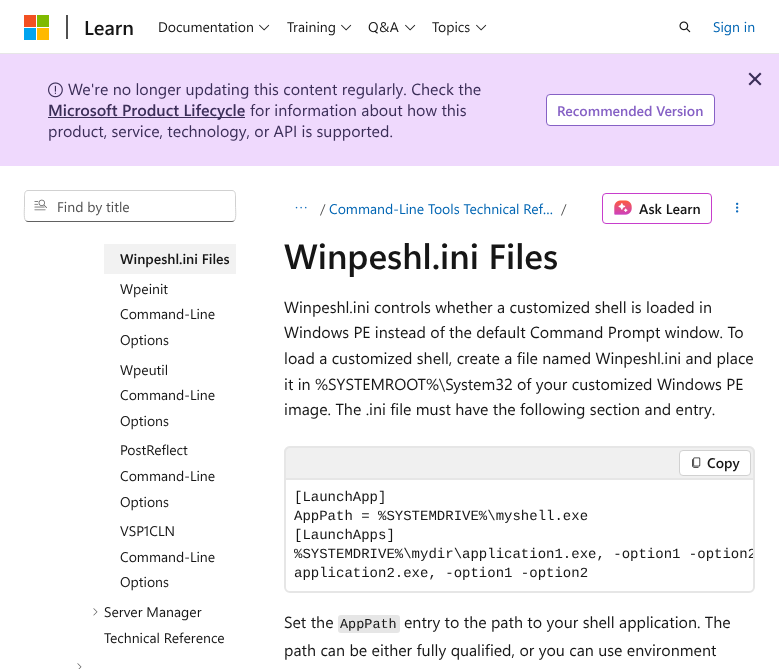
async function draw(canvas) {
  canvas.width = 779;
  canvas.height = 669;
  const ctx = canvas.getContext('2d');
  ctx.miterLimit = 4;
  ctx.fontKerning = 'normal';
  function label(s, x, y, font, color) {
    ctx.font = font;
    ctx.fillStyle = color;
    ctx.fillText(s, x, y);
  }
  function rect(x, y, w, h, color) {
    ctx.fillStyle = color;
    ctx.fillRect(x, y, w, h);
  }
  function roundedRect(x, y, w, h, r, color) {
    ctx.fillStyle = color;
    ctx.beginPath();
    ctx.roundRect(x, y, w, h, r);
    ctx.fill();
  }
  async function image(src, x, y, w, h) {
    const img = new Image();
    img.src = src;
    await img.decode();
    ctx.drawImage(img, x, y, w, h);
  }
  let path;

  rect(0, 0, 779, 669, '#fff');
  rect(0, 53, 779, 1, '#e6e6e6');
  rect(24, 15, 12, 12, '#f25022');
  rect(37, 15, 12, 12, '#7fba00');
  rect(24, 28, 12, 12, '#00a4ef');
  rect(37, 28, 12, 12, '#ffb900');
  rect(66, 15, 2, 24, '#505050');
  label('Learn', 84, 35, '600 20px Segoe UI', '#161616');
  label('Documentation', 158, 32, '14px Segoe UI', '#161616');
  await image('assets/img1.png', 259, 24, 11, 7);
  label('Training', 287, 32, '14px Segoe UI', '#161616');
  await image('assets/img1.png', 341, 24, 11, 7);
  label('Q&A', 368, 32, '14px Segoe UI', '#161616');
  await image('assets/img1.png', 405, 24, 11, 7);
  label('Topics', 432, 32, '14px Segoe UI', '#161616');
  await image('assets/img1.png', 476, 24, 11, 7);
  await image('assets/img2.png', 679, 21, 12, 12);
  label('Sign in', 713, 32, '14px Segoe UI', '#0065b3');
  rect(0, 54, 779, 112, '#efd9fd');
  ctx.fillStyle = '#3b2e58';
  path = new Path2D('M750 72.5L761.5 84L760 85.5L748.5 74Z');
  ctx.fill(path);
  path = new Path2D('M760 72.5L761.5 74L750 85.5L748.5 84Z');
  ctx.fill(path);
  await image('assets/img3.png', 48, 82, 15, 16);
  label('We\'re no longer updating this content regularly. Check the', 68, 95, '16px Segoe UI', '#3b2e58');
  rect(48, 117, 197, 1, '#3b2e58');
  label('Microsoft Product Lifecycle', 48, 116, '600 16px Segoe UI', '#3b2e58');
  label('for information about how this', 250, 116, '16px Segoe UI', '#3b2e58');
  label('product, service, technology, or API is supported.', 48, 137, '16px Segoe UI', '#3b2e58');
  ctx.fillStyle = '#fff';
  ctx.beginPath();
  ctx.roundRect(546.5, 94.5, 168, 31, 3.5);
  ctx.fill();
  ctx.strokeStyle = '#8661c5';
  ctx.stroke();
  label('Recommended Version', 557, 116, '600 14px Segoe UI', '#8661c5');
  path = new Path2D('M234.5 220.5C234 221 233 221.5 232 221.5H28C27 221.5 26 221 25.5 220.5');
  ctx.strokeStyle = '#616161';
  ctx.stroke(path);
  path = new Path2D('M25.5 220.5C23.5 218 24.5 209 24.5 206V198C24.5 195.5 24 190.5 28 190.5H232C236 190.5 235.5 195.5 235.5 198V206C235.5 209 236.5 218 234.5 220.5');
  ctx.strokeStyle = '#d1d1d1';
  ctx.stroke(path);
  await image('assets/img4.png', 34, 199, 13, 12);
  label('Find by title', 57, 212, '14px Segoe UI', '#505050');
  rect(104, 244, 132, 30, '#f2f2f2');
  label('Winpeshl.ini Files', 120, 264, '600 14px Segoe UI', '#161616');
  label('Wpeinit', 120, 294, '14px Segoe UI', '#161616');
  label('Command-Line', 120, 319, '14px Segoe UI', '#161616');
  label('Options', 120, 345, '14px Segoe UI', '#161616');
  label('Wpeutil', 120, 375, '14px Segoe UI', '#161616');
  label('Command-Line', 120, 400, '14px Segoe UI', '#161616');
  label('Options', 120, 426, '14px Segoe UI', '#161616');
  label('PostReflect', 120, 455, '14px Segoe UI', '#161616');
  label('Command-Line', 120, 481, '14px Segoe UI', '#161616');
  label('Options', 120, 507, '14px Segoe UI', '#161616');
  label('VSP1CLN', 120, 536, '14px Segoe UI', '#161616');
  label('Command-Line', 120, 562, '14px Segoe UI', '#161616');
  label('Options', 120, 587, '14px Segoe UI', '#161616');
  await image('assets/img5.png', 93, 608, 5, 8);
  label('Server Manager', 104, 617, '14px Segoe UI', '#161616');
  label('Technical Reference', 104, 643, '14px Segoe UI', '#161616');
  await image('assets/img6.png', 77, 663, 5, 6);
  await image('assets/img7.png', 295, 206, 12, 3);
  label('/', 320, 214, '14px Segoe UI', '#505050');
  label('Command-Line Tools Technical Ref…', 329, 214, '14px Segoe UI', '#0065b3');
  label('/', 561, 214, '14px Segoe UI', '#505050');
  ctx.beginPath();
  ctx.roundRect(602.5, 193.5, 109, 30, 3.5);
  ctx.strokeStyle = '#c73ecc';
  ctx.stroke();
  await image('assets/img8.png', 614, 200, 18, 15);
  label('Ask Learn', 639, 214, '600 14px Segoe UI', '#161616');
  await image('assets/img9.png', 736, 202, 3, 11);
  label('Winpeshl.ini Files', 284, 269, '600 35px Segoe UI', '#161616');
  label('Winpeshl.ini controls whether a customized shell is loaded in', 284, 313, '16px Segoe UI', '#161616');
  label('Windows PE instead of the default Command Prompt window. To', 284, 338, '16px Segoe UI', '#161616');
  label('load a customized shell, create a file named Winpeshl.ini and place', 284, 364, '16px Segoe UI', '#161616');
  label('it in %SYSTEMROOT%\\System32 of your customized Windows PE', 284, 390, '16px Segoe UI', '#161616');
  label('image. The .ini file must have the following section and entry.', 284, 415, '16px Segoe UI', '#161616');
  ctx.fillStyle = '#f0f0f0';
  ctx.beginPath();
  ctx.roundRect(284, 446, 471, 32, [6, 6, 0, 0]);
  ctx.fill();
  ctx.fillStyle = '#e6e6e6';
  path = new Path2D('M290 446H749C752 446 755 449 755 452V478H284V452C284 449 287 446 290 446ZM290 448H749C751 448 753 450 753 452V478H286V452C286 450 288 448 290 448Z');
  ctx.fill(path, 'evenodd');
  ctx.fillStyle = '#fff';
  ctx.beginPath();
  ctx.roundRect(679.5, 450.5, 71, 25, 3.5);
  ctx.fill();
  ctx.strokeStyle = '#d1d1d1';
  ctx.stroke();
  await image('assets/img10.png', 692, 457, 9, 11);
  label('Copy', 707, 468, '600 14px Segoe UI', '#161616');
  ctx.beginPath();
  ctx.roundRect(285, 479, 469, 113, [0, 0, 5, 5]);
  ctx.strokeStyle = '#e6e6e6';
  ctx.lineWidth = 2;
  ctx.stroke();
  label('[LaunchApp]', 294, 501, '14px Liberation Mono', '#161616');
  label('AppPath = %SYSTEMDRIVE%\\myshell.exe', 294, 520, '14px Liberation Mono', '#161616');
  label('[LaunchApps]', 294, 539, '14px Liberation Mono', '#161616');
  ctx.save();
  ctx.beginPath();
  ctx.roundRect(286, 480, 467, 111, [0, 0, 4, 4]);
  ctx.clip();
  label('%SYSTEMDRIVE%\\mydir\\application1.exe, -option1 -option2', 294, 558, '14px Liberation Mono', '#161616');
  ctx.restore();
  label('application2.exe, -option1 -option2', 294, 577, '14px Liberation Mono', '#161616');
  label('Set the', 284, 628, '16px Segoe UI', '#161616');
  roundedRect(338, 615, 62, 18, 3, '#e6e6e6');
  label('AppPath', 340, 628, '13.5px Liberation Mono', '#161616');
  label('entry to the path to your shell application. The', 404, 628, '16px Segoe UI', '#161616');
  label('path can be either fully qualified, or you can use environment', 284, 656, '16px Segoe UI', '#161616');
}

draw(document.querySelector('canvas'));
